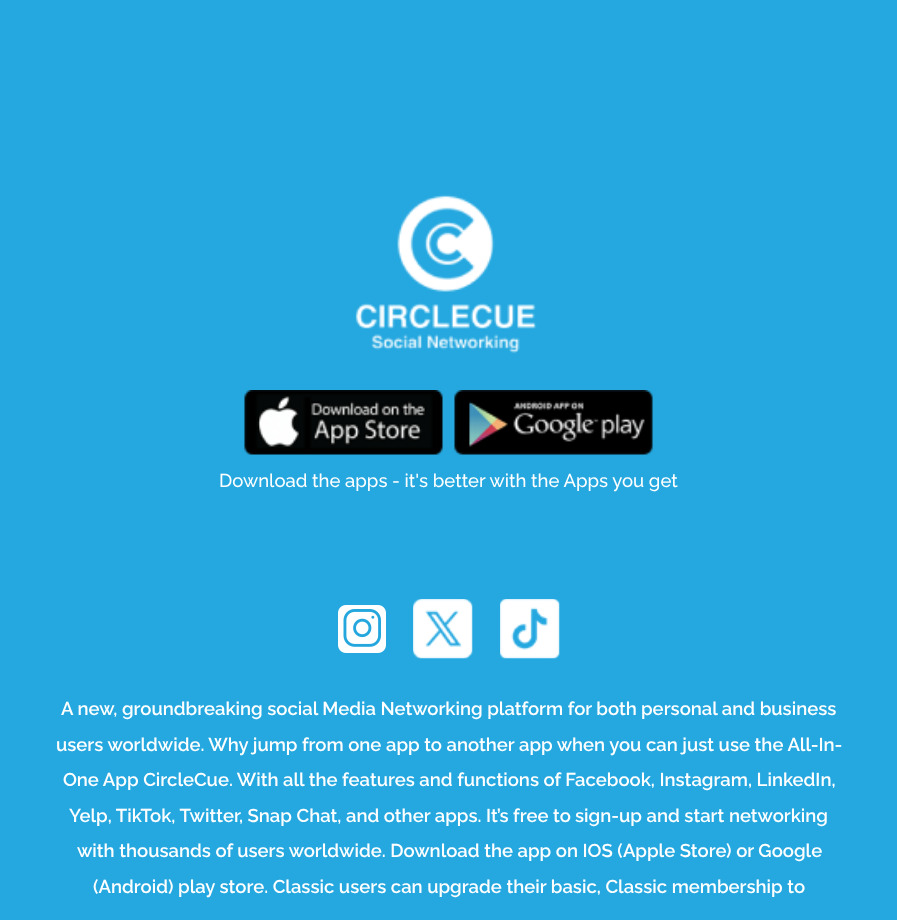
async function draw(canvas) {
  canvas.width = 897;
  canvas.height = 920;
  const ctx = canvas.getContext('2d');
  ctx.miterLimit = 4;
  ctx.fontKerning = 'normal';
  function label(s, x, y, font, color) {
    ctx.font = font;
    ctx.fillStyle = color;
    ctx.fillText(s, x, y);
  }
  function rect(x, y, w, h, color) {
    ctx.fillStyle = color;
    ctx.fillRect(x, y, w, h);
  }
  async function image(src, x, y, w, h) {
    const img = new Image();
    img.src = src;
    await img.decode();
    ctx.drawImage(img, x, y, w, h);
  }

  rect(0, 0, 897, 920, '#25a8e0');
  await image('assets/img1.png', 355, 194, 182, 160);
  await image('assets/img2.png', 244, 390, 199, 65);
  await image('assets/img3.png', 454, 390, 199, 65);
  label('Download the apps - it\'s better with the Apps you get', 219, 487, '500 18.5px Raleway', '#fff');
  await image('assets/img4.png', 338, 605, 48, 48);
  await image('assets/img5.png', 413, 599, 60, 60);
  await image('assets/img6.png', 500, 599, 60, 60);
  label('A new, groundbreaking social Media Networking platform for both', 61, 715, '600 18.5px Raleway', '#fff');
  label('personal and business', 641, 715, '600 18.5px Raleway', '#fff');
  label('users worldwide. Why jump from one app to another app when you can just use the All-In-', 56, 751, '600 18.5px Raleway', '#fff');
  label('One App CircleCue. With all the features and functions of Facebook, Instagram, LinkedIn,', 63, 786, '600 18.5px Raleway', '#fff');
  label('Yelp, TikTok, Twitter, Snap Chat, and other apps. It’s free to', 69, 822, '600 18.5px Raleway', '#fff');
  label('sign-up and start networking', 575, 822, '600 18.5px Raleway', '#fff');
  label('with thousands of users worldwide. Download the app on IOS (Apple Store) or Google', 77, 857, '600 18.5px Raleway', '#fff');
  label('(Android) play store. Classic users can upgrade their basic, Classic membership to', 93, 893, '600 18.5px Raleway', '#fff');
}

draw(document.querySelector('canvas'));
